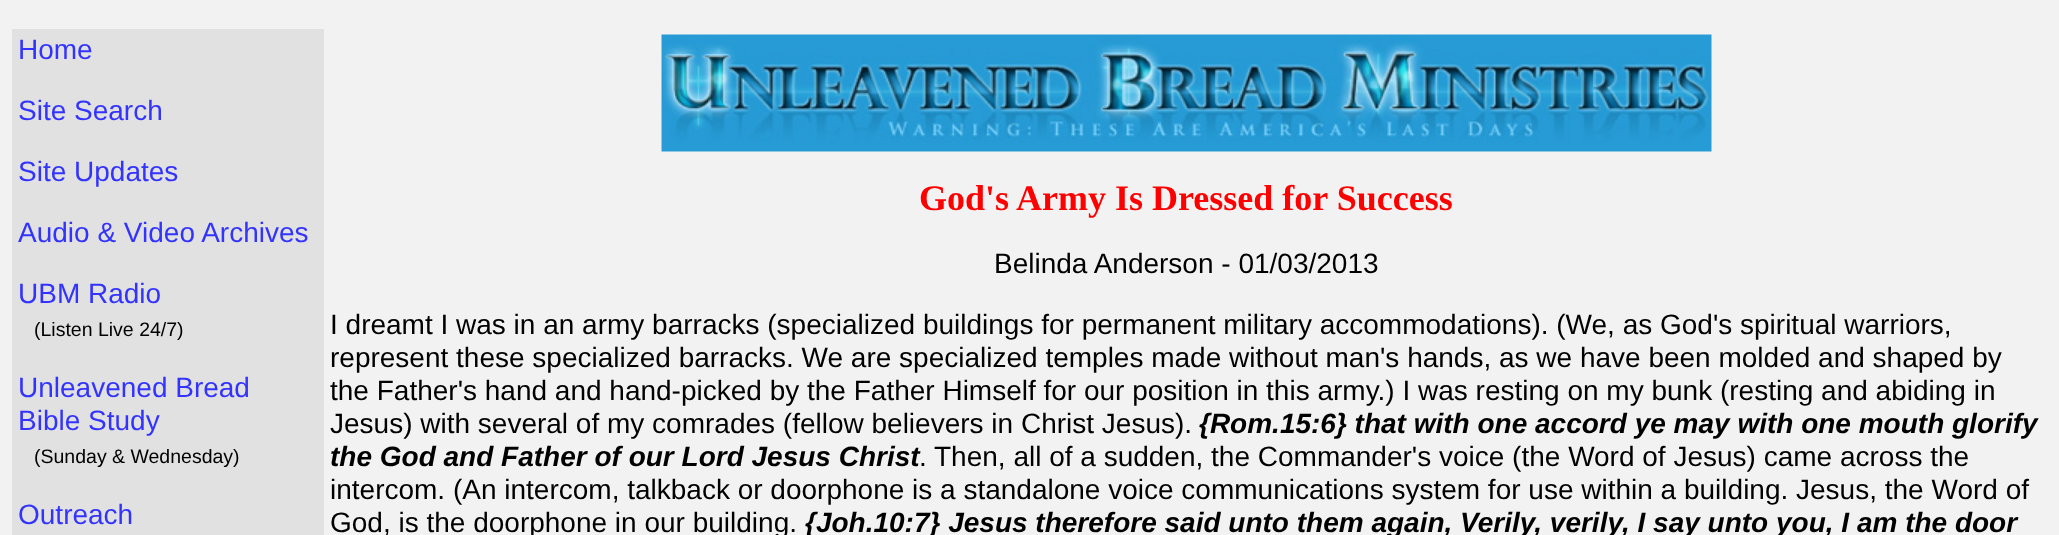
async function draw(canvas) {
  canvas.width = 2059;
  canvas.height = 535;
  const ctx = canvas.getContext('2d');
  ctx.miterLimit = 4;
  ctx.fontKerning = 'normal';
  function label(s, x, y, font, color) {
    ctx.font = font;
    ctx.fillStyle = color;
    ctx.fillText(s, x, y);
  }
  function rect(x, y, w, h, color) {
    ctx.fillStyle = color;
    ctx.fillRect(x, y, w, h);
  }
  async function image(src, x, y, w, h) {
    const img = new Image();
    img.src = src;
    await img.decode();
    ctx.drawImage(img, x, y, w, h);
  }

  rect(0, 0, 2059, 535, '#f2f2f2');
  rect(12, 29, 312, 506, '#e1e1e1');
  label('Home', 18, 59, '28px Liberation Sans', '#33f');
  label('Site Search', 18, 120, '28px Liberation Sans', '#33f');
  label('Site Updates', 18, 181, '28px Liberation Sans', '#33f');
  label('Audio & Video Archives', 18, 242, '28px Liberation Sans', '#33f');
  label('UBM Radio', 18, 303, '28px Liberation Sans', '#33f');
  label('(Listen Live 24/7)', 34, 336, '19.5px Liberation Sans', '#000');
  label('Unleavened Bread', 18, 397, '28px Liberation Sans', '#33f');
  label('Bible Study', 18, 430, '28px Liberation Sans', '#33f');
  label('(Sunday & Wednesday)', 34, 463, '19.5px Liberation Sans', '#000');
  label('Outreach', 18, 524, '28px Liberation Sans', '#33f');
  await image('assets/img1.png', 661, 34, 1051, 118);
  label('God\'s Army Is Dressed for Success', 919, 210, 'bold 36px Liberation Serif', '#f00');
  label('Belinda Anderson - 01/03/2013', 994, 273, '28px Liberation Sans', '#000');
  label('I dreamt I was in an army barracks (specialized buildings for permanent military accommodations). (We, as God\'s spiritual warriors,', 330, 334, '28px Liberation Sans', '#000');
  label('represent these specialized barracks. We are specialized temples made without man\'s hands, as we have been molded and shaped by', 330, 367, '28px Liberation Sans', '#000');
  label('the Father\'s hand and hand-picked by the Father Himself for our position in this army.) I was resting on my bunk (resting and abiding in', 330, 400, '28px Liberation Sans', '#000');
  label('Jesus) with several of my comrades (fellow believers in Christ Jesus).', 330, 433, '28px Liberation Sans', '#000');
  label('{Rom.15:6} that with one accord ye may with one mouth glorify', 1199, 433, 'italic bold 28px Liberation Sans', '#000');
  label('the God and Father of our Lord Jesus Christ', 330, 466, 'italic bold 28px Liberation Sans', '#000');
  label('.', 919, 466, '28px Liberation Sans', '#000');
  label('Then, all of a sudden, the Commander\'s voice (the Word of Jesus) came across the', 934, 466, '28px Liberation Sans', '#000');
  label('intercom. (An intercom, talkback or doorphone is a standalone voice communications system for use within a building. Jesus, the Word of', 330, 499, '28px Liberation Sans', '#000');
  label('God, is the doorphone in our building.', 330, 532, '28px Liberation Sans', '#000');
  label('{Joh.10:7} Jesus therefore said unto them again, Verily, verily, I say unto you, I am the door', 805, 532, 'italic bold 28px Liberation Sans', '#000');
}

draw(document.querySelector('canvas'));
